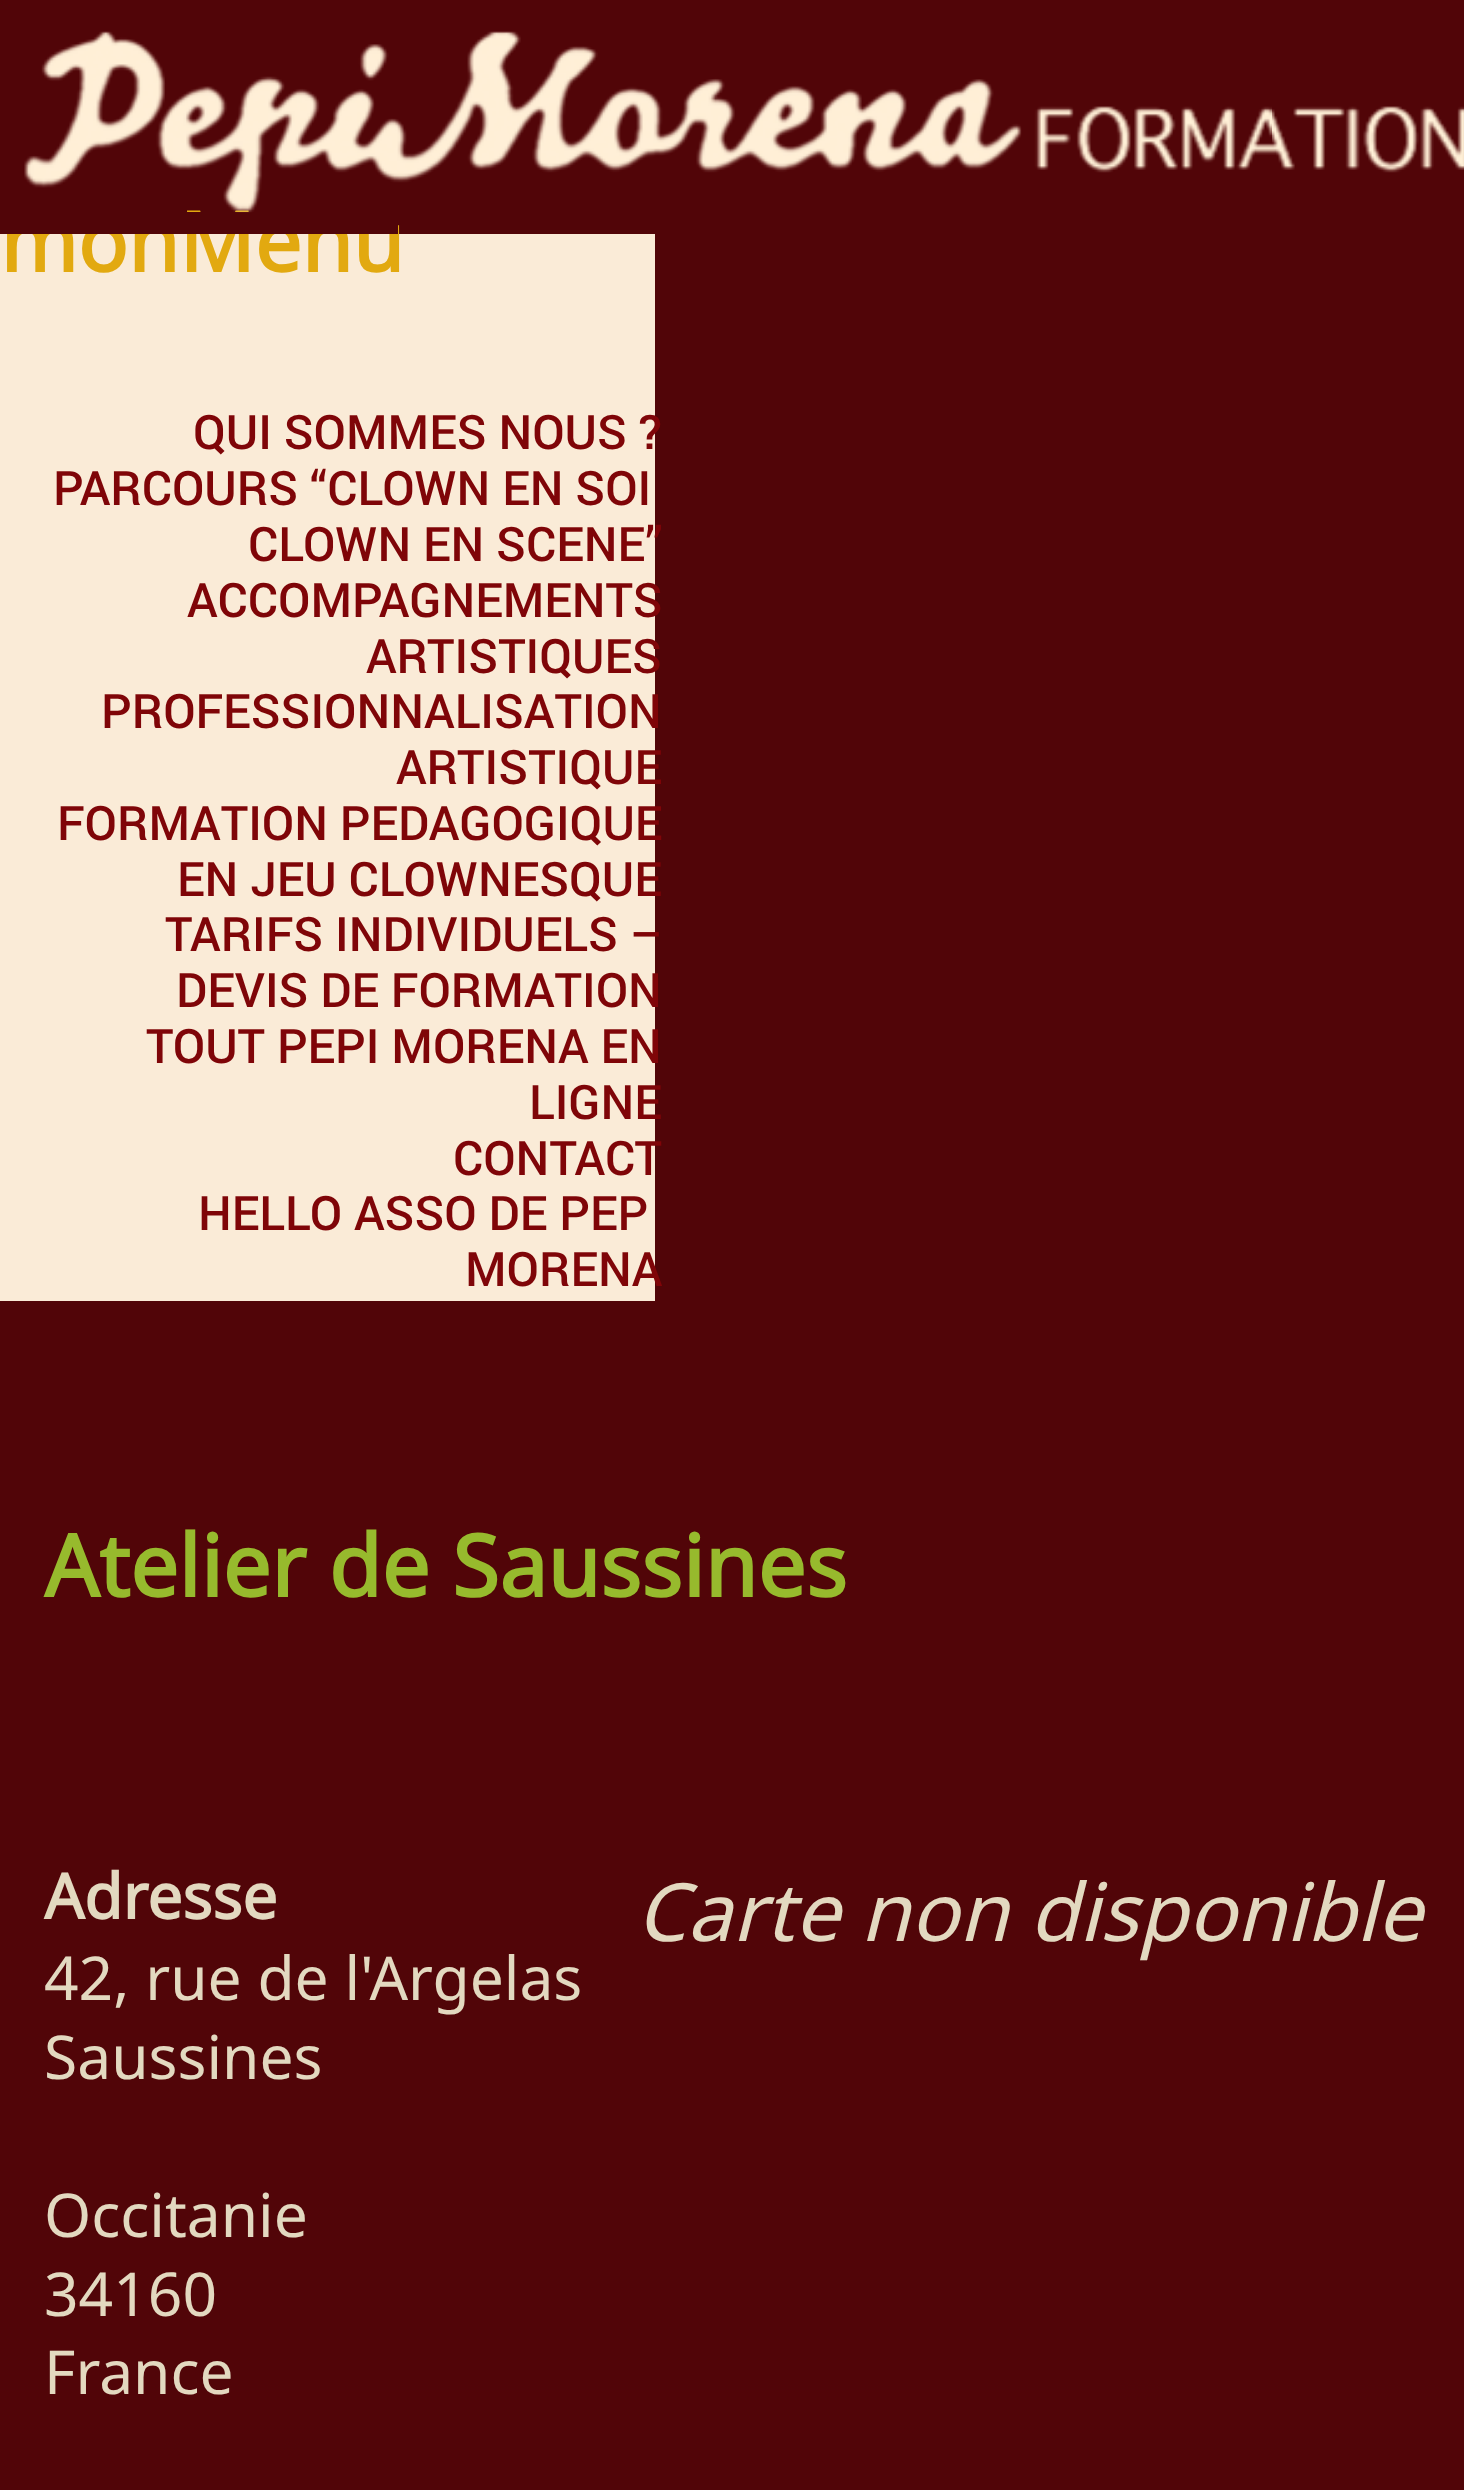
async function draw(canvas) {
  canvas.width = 1464;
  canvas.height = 2490;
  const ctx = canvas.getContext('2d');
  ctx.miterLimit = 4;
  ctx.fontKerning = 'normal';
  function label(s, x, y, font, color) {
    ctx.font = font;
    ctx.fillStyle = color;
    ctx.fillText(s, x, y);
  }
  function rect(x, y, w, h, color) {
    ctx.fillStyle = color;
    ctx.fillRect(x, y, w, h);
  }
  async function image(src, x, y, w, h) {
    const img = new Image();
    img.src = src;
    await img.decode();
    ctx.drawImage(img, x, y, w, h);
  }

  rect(0, 0, 1464, 2490, '#510508');
  rect(0, 234, 655, 1067, '#faebd7');
  label('monMenu', 0, 272, 'bold 83px Noto Sans', '#e2a910');
  rect(7, 212, 391, 22, '#510508');
  await image('assets/img1.png', 24, 31, 1440, 182);
  label('QUI SOMMES NOUS ?', 193, 449, '500 47.5px Roboto', '#7f0508');
  label('PARCOURS “CLOWN EN SOI', 53, 505, '500 47.5px Roboto', '#7f0508');
  label('CLOWN EN SCENE”', 248, 561, '500 47.5px Roboto', '#7f0508');
  label('ACCOMPAGNEMENTS', 187, 617, '500 47.5px Roboto', '#7f0508');
  label('ARTISTIQUES', 366, 673, '500 47.5px Roboto', '#7f0508');
  label('PROFESSIONNALISATION', 101, 728, '500 47.5px Roboto', '#7f0508');
  label('ARTISTIQUE', 396, 784, '500 47.5px Roboto', '#7f0508');
  label('FORMATION PEDAGOGIQUE', 57, 840, '500 47.5px Roboto', '#7f0508');
  label('EN JEU CLOWNESQUE', 177, 896, '500 47.5px Roboto', '#7f0508');
  label('TARIFS INDIVIDUELS –', 165, 951, '500 47.5px Roboto', '#7f0508');
  label('DEVIS DE FORMATION', 176, 1007, '500 47.5px Roboto', '#7f0508');
  label('TOUT PEPI MORENA EN', 146, 1063, '500 47.5px Roboto', '#7f0508');
  label('LIGNE', 529, 1119, '500 47.5px Roboto', '#7f0508');
  label('CONTACT', 453, 1175, '500 47.5px Roboto', '#7f0508');
  label('HELLO ASSO DE PEP', 198, 1230, '500 47.5px Roboto', '#7f0508');
  label('MORENA', 465, 1286, '500 47.5px Roboto', '#7f0508');
  label('Atelier de Saussines', 44, 1597, 'bold 85.75px Noto Sans', '#97ba2d');
  label('Adresse', 44, 1919, 'bold 62.5px Noto Sans', '#e3d9c0');
  label('42, rue de l\'Argelas', 44, 2000, '60.5px Noto Sans', '#e3d9c0');
  label('Saussines', 44, 2079, '60.5px Noto Sans', '#e3d9c0');
  label('Occitanie', 44, 2237, '60.5px Noto Sans', '#e3d9c0');
  label('34160', 44, 2316, '60.5px Noto Sans', '#e3d9c0');
  label('France', 44, 2394, '60.5px Noto Sans', '#e3d9c0');
  label('Carte non disponible', 636, 1941, 'italic 80.4px Noto Sans', '#e3d9c0');
}

draw(document.querySelector('canvas'));
